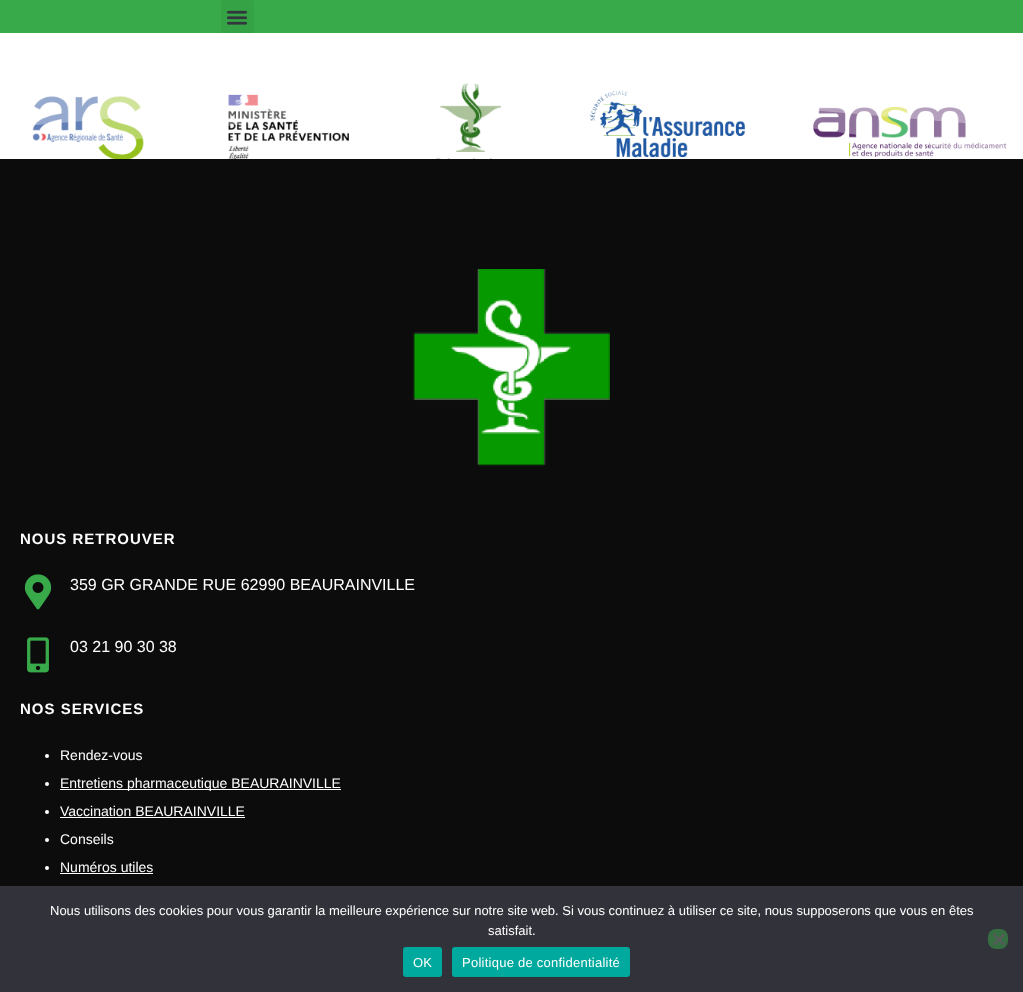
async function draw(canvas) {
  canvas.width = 1023;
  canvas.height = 992;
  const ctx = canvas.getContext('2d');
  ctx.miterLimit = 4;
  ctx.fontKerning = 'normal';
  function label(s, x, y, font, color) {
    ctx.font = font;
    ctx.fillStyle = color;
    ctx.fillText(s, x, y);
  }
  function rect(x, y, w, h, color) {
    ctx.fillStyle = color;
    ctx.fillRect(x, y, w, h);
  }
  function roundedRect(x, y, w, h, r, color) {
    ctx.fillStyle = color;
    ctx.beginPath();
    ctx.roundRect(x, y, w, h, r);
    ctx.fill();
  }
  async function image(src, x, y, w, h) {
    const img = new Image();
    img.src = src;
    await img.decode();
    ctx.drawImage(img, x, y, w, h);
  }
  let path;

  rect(0, 0, 1023, 992, '#fff');
  rect(0, 0, 1023, 33, '#39aa4a');
  roundedRect(221, 0, 33, 33, 3, '#36a246');
  await image('assets/img1.png', 227, 10, 20, 15);
  await image('assets/img2.png', 32, 96, 112, 63);
  await image('assets/img3.png', 228, 94, 121, 65);
  await image('assets/img4.png', 434, 82, 68, 77);
  await image('assets/img5.png', 590, 90, 155, 68);
  await image('assets/img6.png', 813, 107, 194, 50);
  ctx.fillStyle = '#ffffff54';
  path = new Path2D('M0 65V159L512 85L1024 159V65Z');
  ctx.fill(path);
  path = new Path2D('M0 65V128L512 85L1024 128V65Z');
  ctx.fill(path);
  path = new Path2D('M0 65V97L512 85L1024 97V65Z');
  ctx.fill(path);
  ctx.fillStyle = '#fff';
  path = new Path2D('M0 65V71L512 85L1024 71V65Z');
  ctx.fill(path);
  rect(0, 159, 1023, 727, '#0c0c0c');
  await image('assets/img7.png', 413, 269, 197, 197);
  ctx.letterSpacing = '1px';
  label('NOUS RETROUVER', 20, 544, 'bold 15px Liberation Sans', '#fff');
  await image('assets/img8.png', 24, 574, 28, 36);
  ctx.letterSpacing = '0px';
  label('359 GR GRANDE RUE 62990 BEAURAINVILLE', 70, 590, '16px Liberation Sans', '#fff');
  await image('assets/img9.png', 27, 637, 22, 36);
  label('03 21 90 30 38', 70, 652, '16px Liberation Sans', '#fff');
  ctx.letterSpacing = '1px';
  label('NOS SERVICES', 20, 714, 'bold 15px Liberation Sans', '#fff');
  ctx.beginPath();
  ctx.arc(47, 756, 2, 0, 2 * Math.PI);
  ctx.fill();
  ctx.letterSpacing = '0px';
  label('Rendez-vous', 60, 760, '14px Liberation Sans', '#fff');
  ctx.beginPath();
  ctx.arc(47, 784, 2, 0, 2 * Math.PI);
  ctx.fill();
  rect(60, 789, 281, 1, '#fff');
  label('Entretiens pharmaceutique BEAURAINVILLE', 60, 788, '14px Liberation Sans', '#fff');
  ctx.beginPath();
  ctx.arc(47, 812, 2, 0, 2 * Math.PI);
  ctx.fill();
  label('Vaccination BEAURAINVILLE', 60, 816, '14px Liberation Sans', '#fff');
  rect(60, 817, 185, 1, '#fff');
  ctx.beginPath();
  ctx.arc(47, 840, 2, 0, 2 * Math.PI);
  ctx.fill();
  label('Conseils', 60, 844, '14px Liberation Sans', '#fff');
  ctx.beginPath();
  ctx.arc(47, 868, 2, 0, 2 * Math.PI);
  ctx.fill();
  label('Numéros utiles', 60, 872, '14px Liberation Sans', '#fff');
  rect(60, 873, 93, 1, '#fff');
  rect(0, 886, 1023, 106, '#32323a');
  label('Nous utilisons des cookies pour vous garantir la meilleure expérience sur notre site web. Si vous continuez à utiliser ce site, nous supposerons que vous en êtes', 50, 915, '13px Liberation Sans', '#fff');
  label('satisfait.', 488, 935, '13px Liberation Sans', '#fff');
  roundedRect(988, 929, 20, 20, 8, '#366e42');
  ctx.fillStyle = '#59595d';
  path = new Path2D('M1003.5 933.5L1005 935L994.5 945.5L993 944Z');
  ctx.fill(path);
  path = new Path2D('M993 935L994.5 933.5L1005 944L1003.5 945.5Z');
  ctx.fill(path);
  roundedRect(403, 947, 39, 30, 3, '#00a99d');
  ctx.letterSpacing = '0.25px';
  label('OK', 413, 967, '13px Liberation Sans', '#fff');
  roundedRect(452, 947, 178, 30, 3, '#00a99d');
  label('Politique de confidentialité', 462, 967, '13px Liberation Sans', '#fff');
}

draw(document.querySelector('canvas'));
